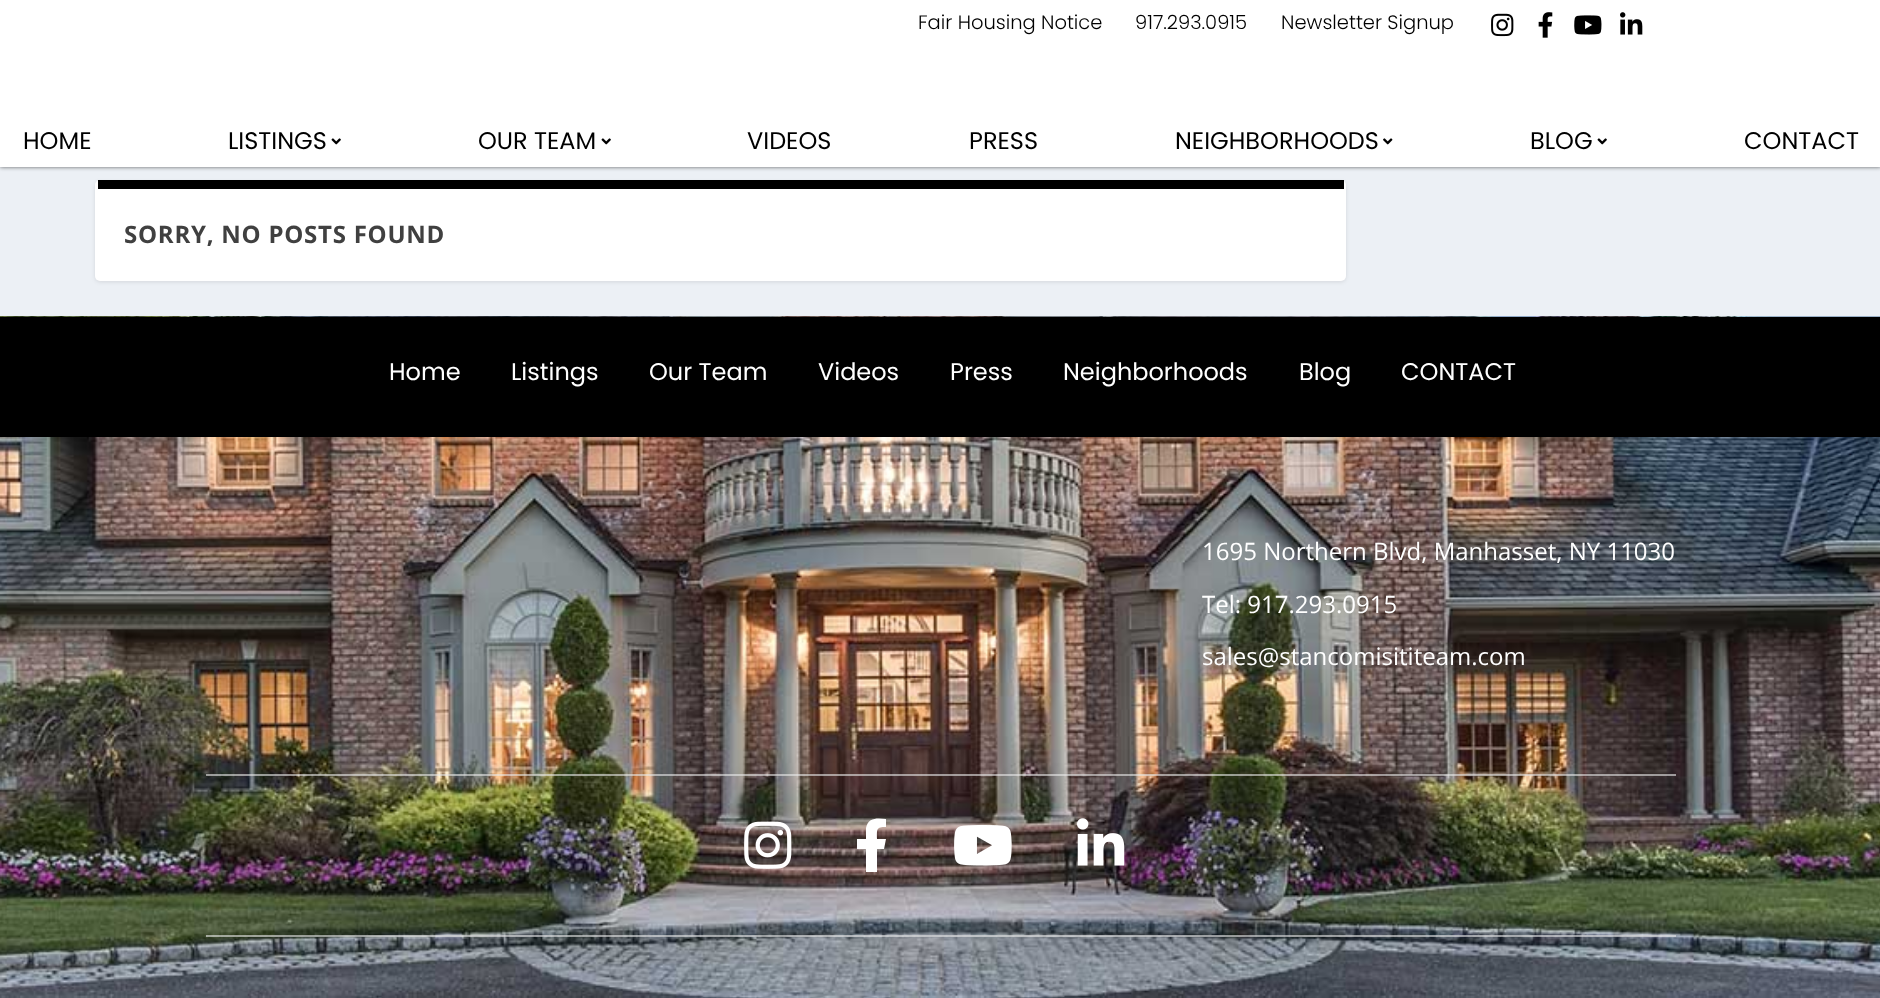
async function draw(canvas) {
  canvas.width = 1880;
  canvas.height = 998;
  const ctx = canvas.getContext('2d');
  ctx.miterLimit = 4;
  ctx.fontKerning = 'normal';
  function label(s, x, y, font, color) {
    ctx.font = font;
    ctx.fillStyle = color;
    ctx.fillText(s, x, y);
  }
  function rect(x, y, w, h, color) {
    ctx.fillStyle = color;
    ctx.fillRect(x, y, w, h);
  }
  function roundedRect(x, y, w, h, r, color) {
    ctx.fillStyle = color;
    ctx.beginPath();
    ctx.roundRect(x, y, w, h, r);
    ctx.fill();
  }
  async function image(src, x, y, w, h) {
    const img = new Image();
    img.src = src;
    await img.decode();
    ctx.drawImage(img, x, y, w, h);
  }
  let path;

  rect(0, 0, 1880, 998, '#ecf0f5');
  ctx.fillStyle = '#00000099';
  ctx.filter = 'blur(2px)';
  ctx.beginPath();
  ctx.rect(0, 0, 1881, 167);
  ctx.fill();
  ctx.filter = 'none';
  rect(0, 0, 1880, 167, '#fff');
  label('Fair Housing Notice', 918, 29, '300 19.5px Poppins', '#000');
  label('917.293.0915', 1135, 29, '300 19.5px Poppins', '#000');
  label('Newsletter Signup', 1281, 29, '300 19.5px Poppins', '#000');
  await image('assets/img1.png', 1491, 13, 23, 24);
  await image('assets/img2.png', 1538, 12, 15, 26);
  await image('assets/img3.png', 1574, 15, 28, 20);
  await image('assets/img4.png', 1620, 12, 23, 23);
  label('HOME', 23, 149, '24px Poppins', '#000');
  label('LISTINGS', 228, 149, '24px Poppins', '#000');
  await image('assets/img5.png', 331, 138, 10, 7);
  label('OUR TEAM', 478, 149, '24px Poppins', '#000');
  await image('assets/img5.png', 601, 138, 10, 7);
  label('VIDEOS', 747, 149, '24px Poppins', '#000');
  label('PRESS', 969, 149, '24px Poppins', '#000');
  label('NEIGHBORHOODS', 1175, 149, '24px Poppins', '#000');
  await image('assets/img6.png', 1383, 138, 10, 7);
  label('BLOG', 1530, 149, '24px Poppins', '#000');
  await image('assets/img5.png', 1597, 138, 10, 7);
  label('CONTACT', 1744, 149, '24px Poppins', '#000');
  ctx.fillStyle = '#0000001a';
  ctx.filter = 'blur(2px)';
  ctx.beginPath();
  ctx.roundRect(95, 182, 1251, 100, 5);
  ctx.fill();
  ctx.filter = 'none';
  roundedRect(95, 180, 1251, 101, 5, '#fff');
  rect(98, 180, 1246, 9, '#000');
  ctx.letterSpacing = '0.75px';
  label('SORRY, NO POSTS FOUND', 124, 243, 'bold 24px Open Sans', '#404040');
  await image('assets/img7.png', 0, 316, 1880, 1);
  await image('assets/img8.png', 0, 437, 1880, 561);
  rect(0, 317, 1880, 120, '#000');
  ctx.letterSpacing = '0px';
  label('Home', 389, 380, '24px Poppins', '#fff');
  label('Listings', 511, 380, '24px Poppins', '#fff');
  label('Our Team', 649, 380, '24px Poppins', '#fff');
  label('Videos', 818, 380, '24px Poppins', '#fff');
  label('Press', 950, 380, '24px Poppins', '#fff');
  label('Neighborhoods', 1063, 380, '24px Poppins', '#fff');
  label('Blog', 1299, 380, '24px Poppins', '#fff');
  label('CONTACT', 1401, 380, '24px Poppins', '#fff');
  rect(206, 774, 1470, 2, '#e9e9e999');
  label('1695 Northern Blvd, Manhasset, NY 11030', 1202, 560, '24px Open Sans', '#fff');
  label('Tel: 917.293.0915', 1202, 613, '24px Open Sans', '#fff');
  label('sales@stancomisititeam.com', 1202, 665, '24px Open Sans', '#fff');
  await image('assets/img9.png', 744, 821, 48, 48);
  path = new Path2D('M884 849H877V872H866V849H857V839H866V828C868 817 878 818 886 819V827C876 827 877 829 877 839H886Z');
  ctx.fill(path);
  await image('assets/img10.png', 954, 825, 58, 41);
  await image('assets/img11.png', 1077, 818, 48, 48);
  rect(206, 935, 1470, 2, '#e9e9e999');
}

draw(document.querySelector('canvas'));
